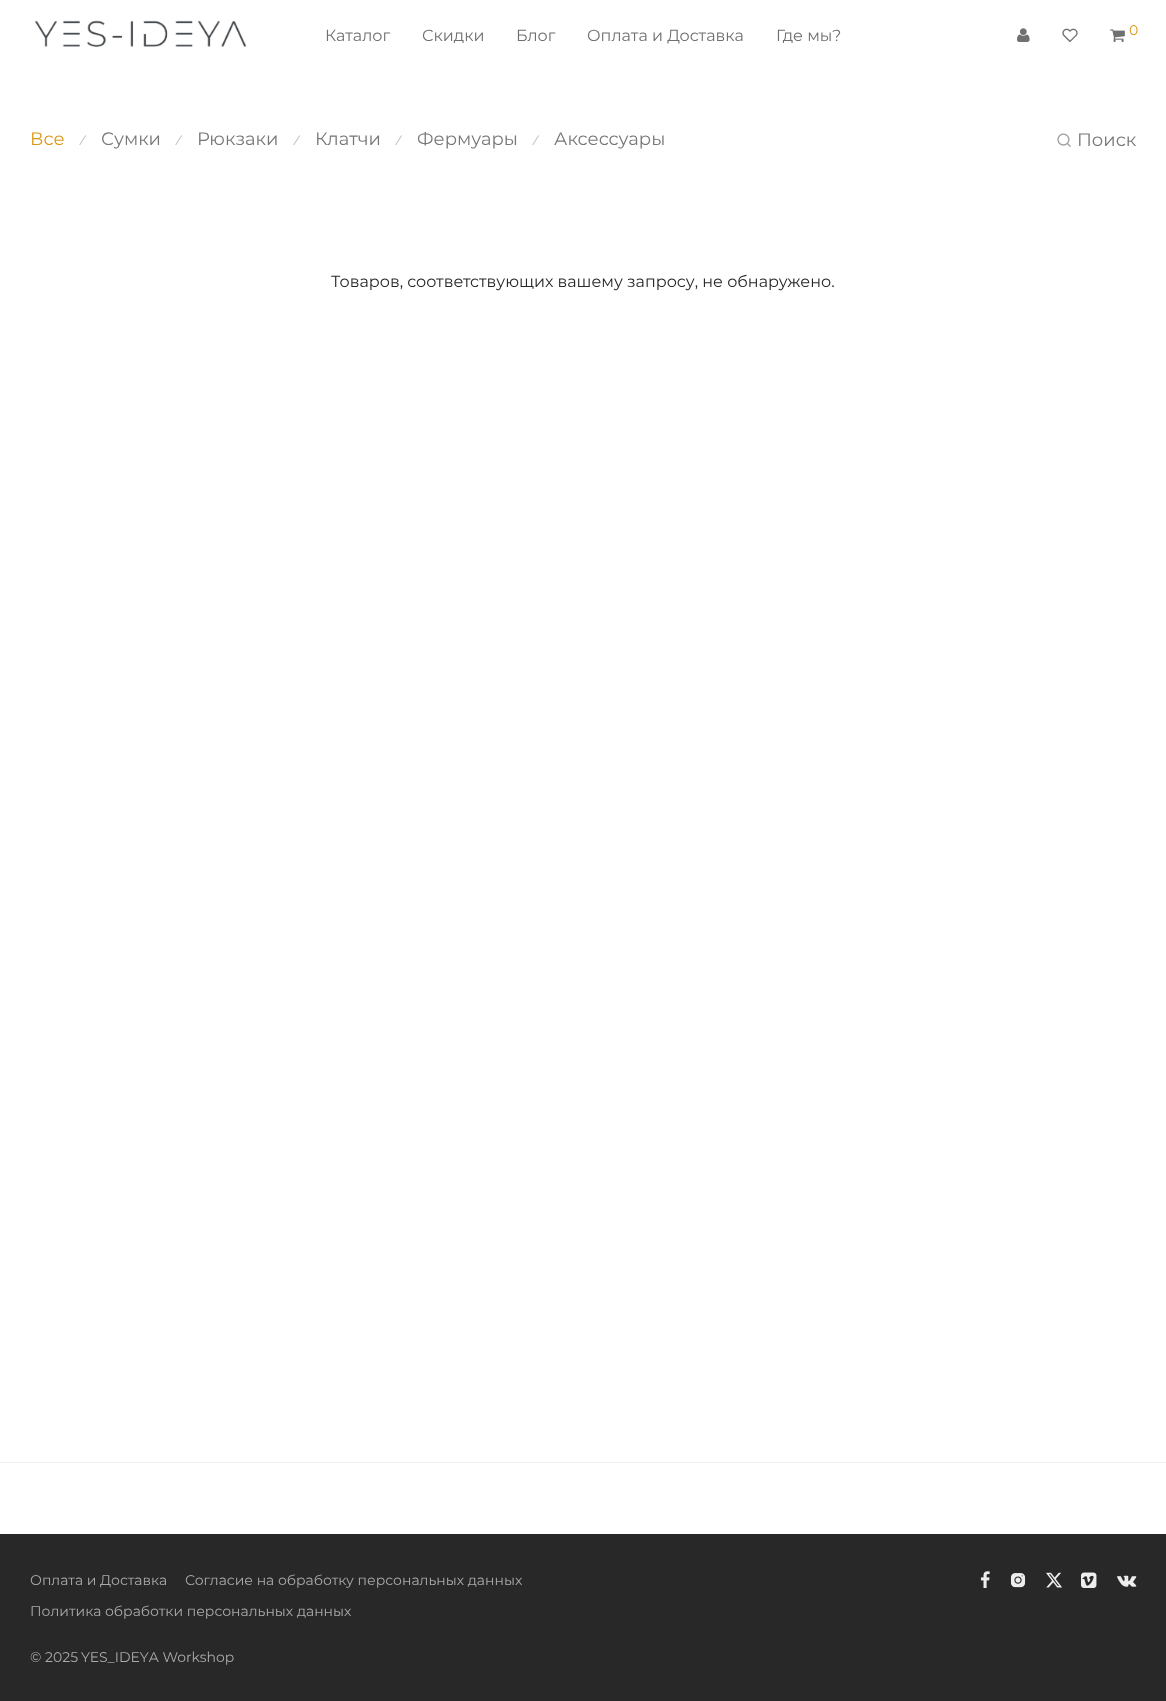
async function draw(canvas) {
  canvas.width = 1166;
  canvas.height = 1701;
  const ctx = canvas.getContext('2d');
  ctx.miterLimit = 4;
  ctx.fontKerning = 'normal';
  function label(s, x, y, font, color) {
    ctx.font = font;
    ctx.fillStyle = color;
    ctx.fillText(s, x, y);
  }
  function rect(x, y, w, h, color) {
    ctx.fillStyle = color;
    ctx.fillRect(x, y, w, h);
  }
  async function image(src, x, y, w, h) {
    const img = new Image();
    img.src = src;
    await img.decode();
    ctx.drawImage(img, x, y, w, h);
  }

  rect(0, 0, 1166, 1701, '#fff');
  await image('assets/img1.png', 34, 20, 213, 27);
  label('Каталог', 325, 41, '16px Montserrat', '#707070');
  label('Скидки', 422, 41, '16px Montserrat', '#707070');
  label('Блог', 516, 41, '16px Montserrat', '#707070');
  label('Оплата и Доставка', 587, 41, '16px Montserrat', '#707070');
  label('Где мы?', 776, 41, '16px Montserrat', '#707070');
  await image('assets/img2.png', 1017, 28, 13, 14);
  await image('assets/img3.png', 1062, 28, 16, 15);
  await image('assets/img4.png', 1110, 29, 15, 13);
  label('0', 1129, 35, '14px Montserrat', '#dc9814');
  label('Все', 30, 145, '18px Montserrat', '#dc9814');
  label('⁄', 82, 145, '14px Liberation Sans', '#bbb');
  label('Сумки', 101, 145, '18px Montserrat', '#777');
  label('⁄', 178, 145, '14px Liberation Sans', '#bbb');
  label('Рюкзаки', 197, 145, '18px Montserrat', '#777');
  label('⁄', 296, 145, '14px Liberation Sans', '#bbb');
  label('Клатчи', 315, 145, '18px Montserrat', '#777');
  label('⁄', 398, 145, '14px Liberation Sans', '#bbb');
  label('Фермуары', 417, 145, '18px Montserrat', '#777');
  label('⁄', 535, 145, '14px Liberation Sans', '#bbb');
  label('Аксессуары', 554, 145, '18px Montserrat', '#777');
  await image('assets/img5.png', 1057, 133, 14, 14);
  label('Поиск', 1077, 146, '18px Montserrat', '#777');
  label('Товаров, соответствующих вашему запросу, не обнаружено.', 331, 287, '16px Montserrat', '#282828');
  rect(0, 1462, 1166, 1, '#eee');
  rect(0, 1534, 1166, 167, '#282828');
  label('Оплата и Доставка', 30, 1585, '14px Montserrat', '#aaa');
  label('Согласие на обработку персональных данных', 185, 1585, '14px Montserrat', '#aaa');
  label('Политика обработки персональных данных', 30, 1616, '14px Montserrat', '#aaa');
  label('© 2025', 30, 1662, '14px Montserrat', '#aaa');
  label('YES_IDEYA Workshop', 81, 1662, '14px Montserrat', '#aaa');
  await image('assets/img6.png', 980, 1571, 10, 17);
  await image('assets/img7.png', 1010, 1573, 16, 15);
  await image('assets/img8.png', 1046, 1572, 16, 16);
  await image('assets/img9.png', 1081, 1572, 16, 16);
  await image('assets/img10.png', 1117, 1575, 20, 12);
}

draw(document.querySelector('canvas'));
